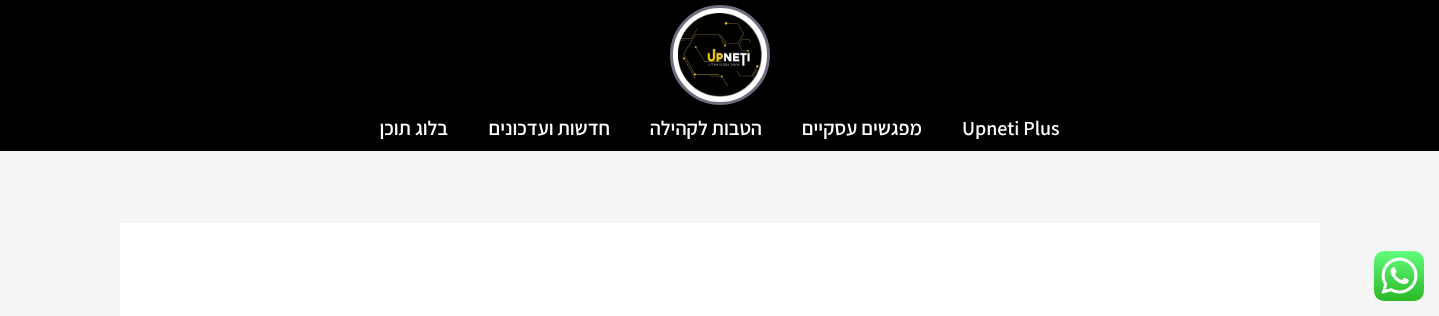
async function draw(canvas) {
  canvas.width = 1439;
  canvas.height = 316;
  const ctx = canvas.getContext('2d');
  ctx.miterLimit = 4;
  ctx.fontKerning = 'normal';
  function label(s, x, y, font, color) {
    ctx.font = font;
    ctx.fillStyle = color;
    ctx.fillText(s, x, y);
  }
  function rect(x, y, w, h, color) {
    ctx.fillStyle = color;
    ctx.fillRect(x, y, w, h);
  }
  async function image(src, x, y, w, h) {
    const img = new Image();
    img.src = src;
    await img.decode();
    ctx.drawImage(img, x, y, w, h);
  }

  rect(0, 0, 1439, 316, '#f5f5f5');
  rect(0, 0, 1439, 151, '#000');
  ctx.fillStyle = '#fff';
  ctx.beginPath();
  ctx.arc(720, 55, 48.5, 0, 2 * Math.PI);
  ctx.fill();
  ctx.strokeStyle = '#716c80';
  ctx.lineWidth = 3;
  ctx.stroke();
  await image('assets/img1.png', 678, 13, 84, 84);
  label('Upneti Plus', 962, 135, '600 20px Assistant', '#fff');
  ctx.direction = 'rtl';
  label('מפגשים עסקיים', 922, 135, '600 20px Assistant', '#fff');
  label('הטבות לקהילה', 762, 135, '600 20px Assistant', '#fff');
  label('חדשות ועדכונים', 610, 135, '600 20px Assistant', '#fff');
  label('בלוג תוכן', 448, 135, '600 20px Assistant', '#fff');
  rect(120, 223, 1200, 93, '#fff');
  await image('assets/img2.png', 1374, 251, 50, 50);
}

draw(document.querySelector('canvas'));
